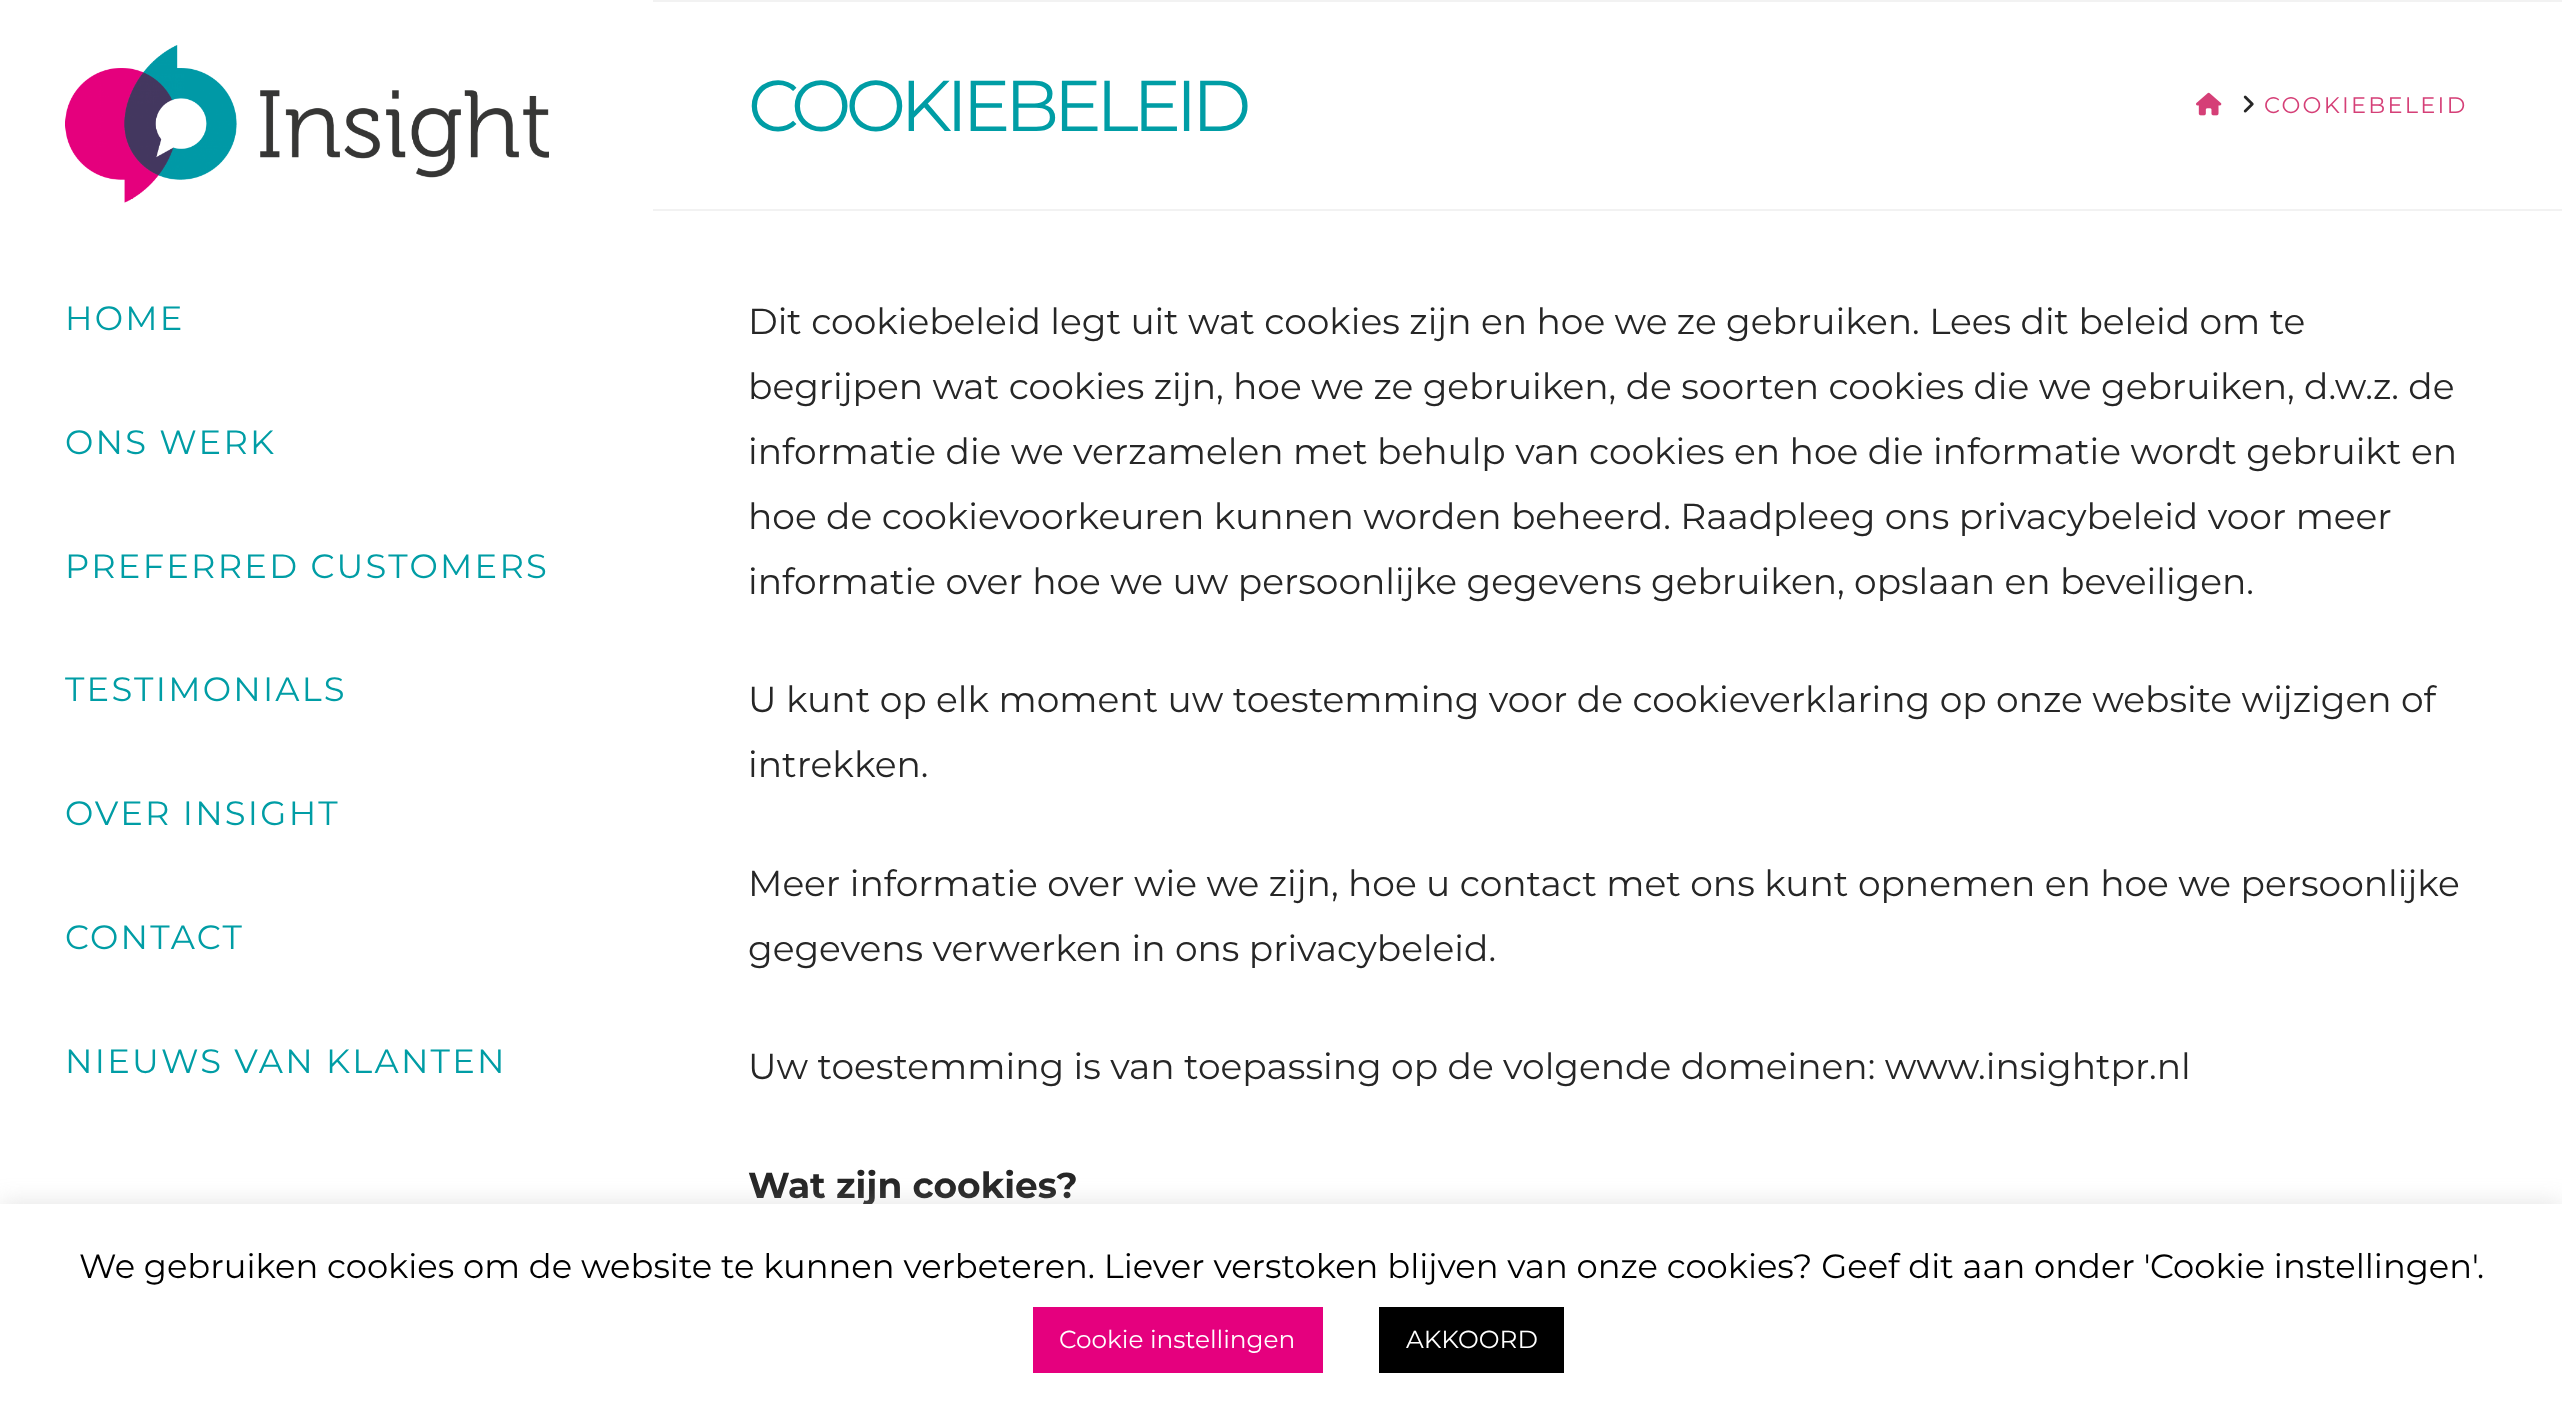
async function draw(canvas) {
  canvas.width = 2562;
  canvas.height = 1409;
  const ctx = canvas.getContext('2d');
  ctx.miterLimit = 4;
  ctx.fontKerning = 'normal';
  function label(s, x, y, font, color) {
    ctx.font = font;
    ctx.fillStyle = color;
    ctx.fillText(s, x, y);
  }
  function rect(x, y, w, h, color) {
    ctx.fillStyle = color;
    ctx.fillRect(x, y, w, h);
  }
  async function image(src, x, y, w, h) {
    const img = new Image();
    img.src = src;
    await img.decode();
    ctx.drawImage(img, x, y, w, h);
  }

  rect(0, 0, 2562, 1409, '#fff');
  rect(653, 0, 1909, 2, '#f2f2f2');
  rect(653, 209, 1909, 2, '#f2f2f2');
  ctx.letterSpacing = '-5.4px';
  label('COOKIEBELEID', 748, 131, '71.75px Montserrat', '#009da5');
  await image('assets/img1.png', 2196, 92, 26, 24);
  await image('assets/img2.png', 2243, 95, 11, 18);
  ctx.letterSpacing = '2.25px';
  label('COOKIEBELEID', 2264, 113, '22.5px Montserrat', '#d53f77');
  await image('assets/img3.png', 65, 45, 484, 158);
  label('HOME', 65, 330, '33.75px Montserrat', '#009da5');
  label('ONS WERK', 65, 454, '33.75px Montserrat', '#009da5');
  label('PREFERRED CUSTOMERS', 65, 578, '33.75px Montserrat', '#009da5');
  label('TESTIMONIALS', 65, 701, '33.75px Montserrat', '#009da5');
  label('OVER INSIGHT', 65, 825, '33.75px Montserrat', '#009da5');
  label('CONTACT', 65, 949, '33.75px Montserrat', '#009da5');
  label('NIEUWS VAN KLANTEN', 65, 1073, '33.75px Montserrat', '#009da5');
  ctx.letterSpacing = '0px';
  label('Dit cookiebeleid legt uit wat cookies zijn en hoe we ze gebruiken. Lees dit beleid om te', 748, 334, '36px Montserrat', '#262626');
  label('begrijpen wat cookies zijn, hoe we ze gebruiken, de soorten cookies die we gebruiken, d.w.z. de', 748, 399, '36px Montserrat', '#262626');
  label('informatie die we verzamelen met behulp van cookies en hoe die informatie wordt gebruikt en', 748, 464, '36px Montserrat', '#262626');
  label('hoe de cookievoorkeuren kunnen worden beheerd. Raadpleeg ons privacybeleid voor meer', 748, 529, '36px Montserrat', '#262626');
  label('informatie over hoe we uw persoonlijke gegevens gebruiken, opslaan en beveiligen.', 748, 594, '36px Montserrat', '#262626');
  label('U kunt op elk moment uw toestemming voor de cookieverklaring op onze website wijzigen of', 748, 712, '36px Montserrat', '#262626');
  label('intrekken.', 748, 777, '36px Montserrat', '#262626');
  label('Meer informatie over wie we zijn, hoe u contact met ons kunt opnemen en hoe we persoonlijke', 748, 896, '36px Montserrat', '#262626');
  label('gegevens verwerken in ons privacybeleid.', 748, 961, '36px Montserrat', '#262626');
  label('Uw toestemming is van toepassing op de volgende domeinen: www.insightpr.nl', 748, 1079, '36px Montserrat', '#262626');
  label('Wat zijn cookies?', 748, 1198, 'bold 36px Montserrat', '#262626');
  ctx.fillStyle = '#acabab4d';
  ctx.filter = 'blur(11px)';
  ctx.beginPath();
  ctx.rect(0, 1202, 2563, 207);
  ctx.fill();
  ctx.filter = 'none';
  rect(0, 1204, 2562, 205, '#fff');
  label('We gebruiken cookies om de website te kunnen verbeteren. Liever verstoken blijven van onze cookies? Geef dit aan onder \'Cookie instellingen\'.', 79, 1278, '33.75px Montserrat', '#000');
  rect(1033, 1307, 290, 66, '#e5007e');
  label('Cookie instellingen', 1059, 1348, '24.75px Montserrat', '#fff');
  rect(1379, 1307, 185, 66, '#000');
  label('AKKOORD', 1406, 1348, '24.75px Montserrat', '#fff');
}

draw(document.querySelector('canvas'));
